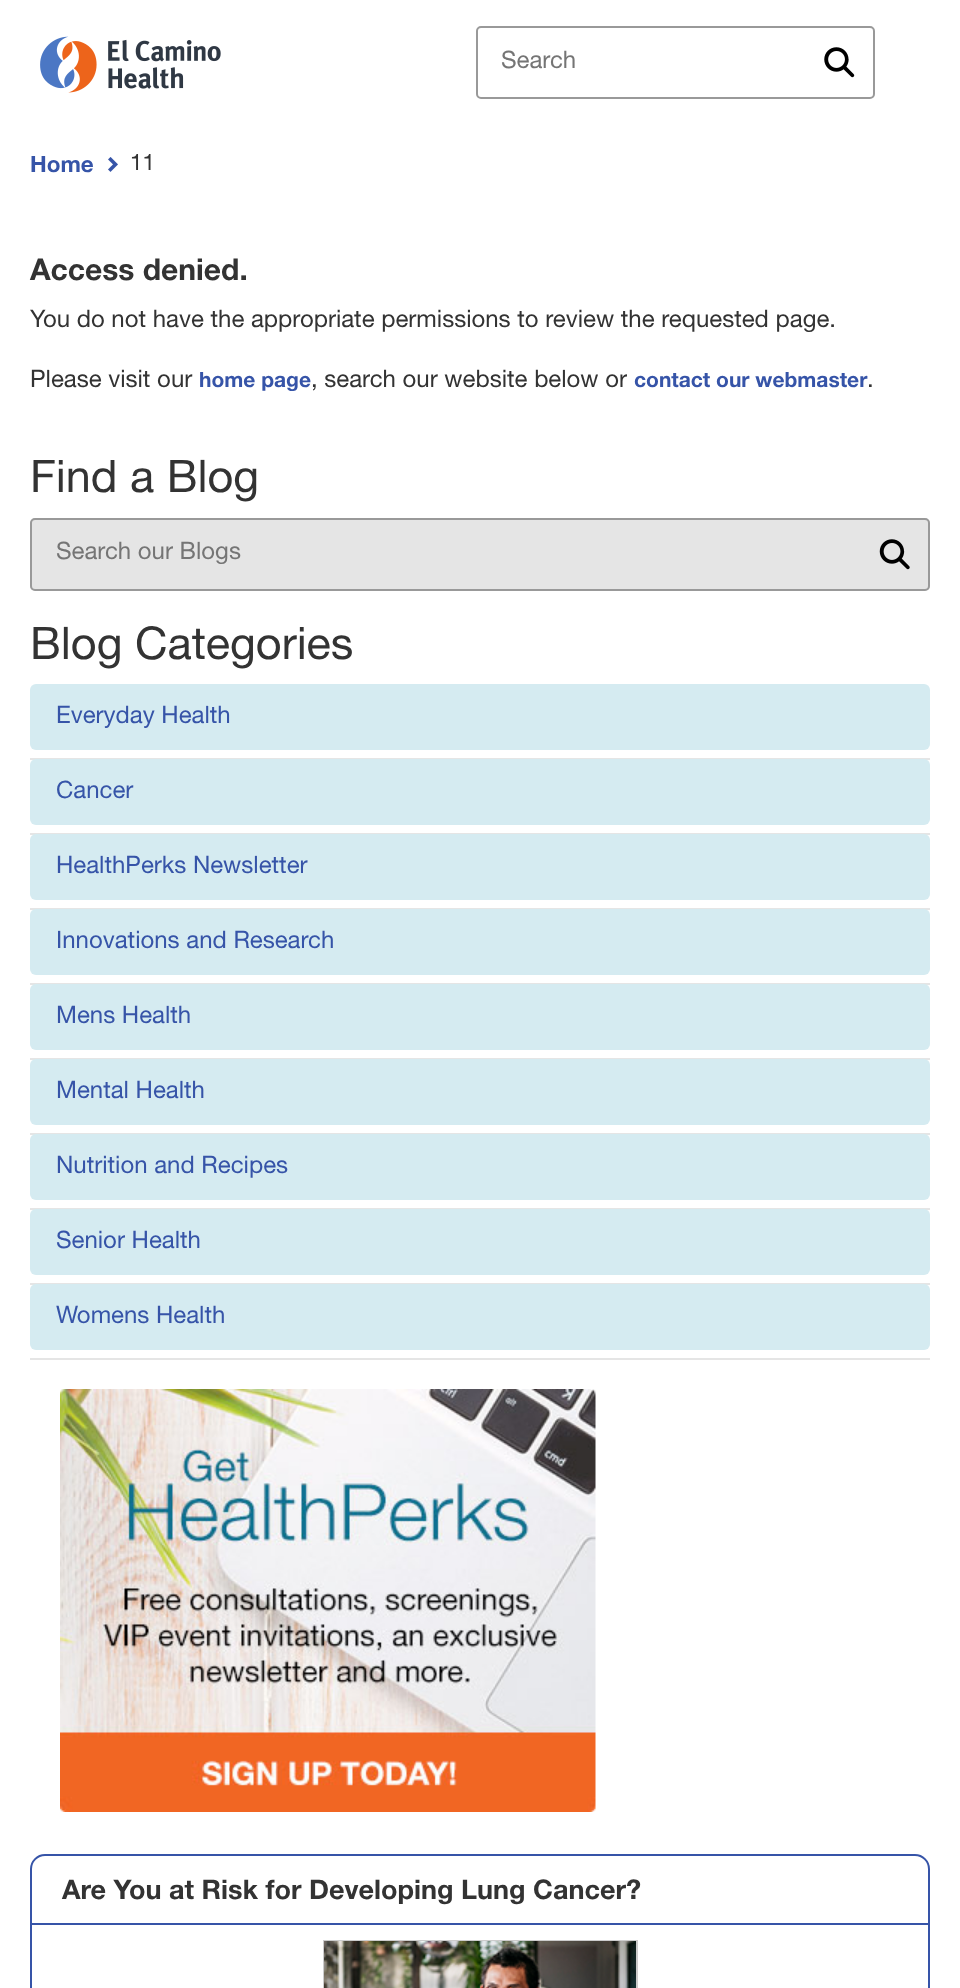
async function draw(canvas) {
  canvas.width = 960;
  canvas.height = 1988;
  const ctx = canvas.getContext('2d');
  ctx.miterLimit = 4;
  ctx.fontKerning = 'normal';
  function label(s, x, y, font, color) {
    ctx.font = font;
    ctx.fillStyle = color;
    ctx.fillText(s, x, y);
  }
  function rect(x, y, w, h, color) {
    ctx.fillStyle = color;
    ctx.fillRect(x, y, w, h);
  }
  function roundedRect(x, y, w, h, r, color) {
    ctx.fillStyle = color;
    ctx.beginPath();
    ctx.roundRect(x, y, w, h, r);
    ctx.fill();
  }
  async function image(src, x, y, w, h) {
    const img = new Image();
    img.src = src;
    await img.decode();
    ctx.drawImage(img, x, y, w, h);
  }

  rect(0, 0, 960, 1988, '#fff');
  await image('assets/img1.png', 40, 36, 181, 57);
  await image('assets/img2.png', 824, 47, 31, 31);
  ctx.beginPath();
  ctx.roundRect(477, 27, 397, 71, 4);
  ctx.strokeStyle = '#999';
  ctx.lineWidth = 2;
  ctx.stroke();
  label('Search', 501, 68, '24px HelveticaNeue', '#757575');
  label('Home', 30, 172, 'bold 22.5px HelveticaNeue', '#3654a8');
  await image('assets/img3.png', 108, 157, 10, 15);
  label('11', 130, 170, '22.5px HelveticaNeue', '#333');
  label('Access denied.', 30, 280, 'bold 30px HelveticaNeue', '#333');
  label('You do not have the appropriate permissions to review the requested page.', 30, 327, '24px HelveticaNeue', '#333');
  label('Please visit our', 30, 387, '24px HelveticaNeue', '#333');
  label('home page', 199, 387, 'bold 21px HelveticaNeue', '#3654a8');
  label(', search our website below or', 311, 387, '24px HelveticaNeue', '#333');
  label('contact our webmaster', 634, 387, 'bold 21px HelveticaNeue', '#3654a8');
  label('.', 867, 387, '24px HelveticaNeue', '#333');
  label('Find a Blog', 30, 492, '45px HelveticaNeue', '#333');
  roundedRect(30, 518, 900, 73, 5, '#e5e5e5');
  await image('assets/img4.png', 879, 539, 31, 31);
  ctx.beginPath();
  ctx.roundRect(31, 519, 898, 71, 4);
  ctx.stroke();
  label('Search our Blogs', 56, 559, '24px HelveticaNeue', '#757575');
  label('Blog Categories', 30, 659, '45px HelveticaNeue', '#333');
  rect(30, 758, 900, 2, '#e5e5e5');
  roundedRect(30, 684, 900, 66, 6, '#d5ebf1');
  label('Everyday Health', 56, 723, '24px HelveticaNeue', '#3654a8');
  rect(30, 833, 900, 2, '#e5e5e5');
  roundedRect(30, 759, 900, 66, 6, '#d5ebf1');
  label('Cancer', 56, 798, '24px HelveticaNeue', '#3654a8');
  rect(30, 908, 900, 2, '#e5e5e5');
  roundedRect(30, 834, 900, 66, 6, '#d5ebf1');
  label('HealthPerks Newsletter', 56, 873, '24px HelveticaNeue', '#3654a8');
  rect(30, 983, 900, 2, '#e5e5e5');
  roundedRect(30, 909, 900, 66, 6, '#d5ebf1');
  label('Innovations and Research', 56, 948, '24px HelveticaNeue', '#3654a8');
  rect(30, 1058, 900, 2, '#e5e5e5');
  roundedRect(30, 984, 900, 66, 6, '#d5ebf1');
  label('Mens Health', 56, 1023, '24px HelveticaNeue', '#3654a8');
  rect(30, 1133, 900, 2, '#e5e5e5');
  roundedRect(30, 1059, 900, 66, 6, '#d5ebf1');
  label('Mental Health', 56, 1098, '24px HelveticaNeue', '#3654a8');
  rect(30, 1208, 900, 2, '#e5e5e5');
  roundedRect(30, 1134, 900, 66, 6, '#d5ebf1');
  label('Nutrition and Recipes', 56, 1173, '24px HelveticaNeue', '#3654a8');
  rect(30, 1283, 900, 2, '#e5e5e5');
  roundedRect(30, 1209, 900, 66, 6, '#d5ebf1');
  label('Senior Health', 56, 1248, '24px HelveticaNeue', '#3654a8');
  rect(30, 1358, 900, 2, '#e5e5e5');
  roundedRect(30, 1284, 900, 66, 6, '#d5ebf1');
  label('Womens Health', 56, 1323, '24px HelveticaNeue', '#3654a8');
  await image('assets/img5.png', 60, 1389, 536, 423);
  ctx.beginPath();
  ctx.roundRect(31, 1855, 898, 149, 14);
  ctx.strokeStyle = '#3654a8';
  ctx.stroke();
  rect(32, 1923, 897, 2, '#3654a8');
  label('Are You at Risk for Developing Lung Cancer?', 62, 1899, 'bold 27px HelveticaNeue', '#333');
  ctx.strokeStyle = '#ccc';
  ctx.strokeRect(324, 1941, 313, 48);
  await image('assets/img6.png', 324, 1941, 312, 47);
}

draw(document.querySelector('canvas'));
